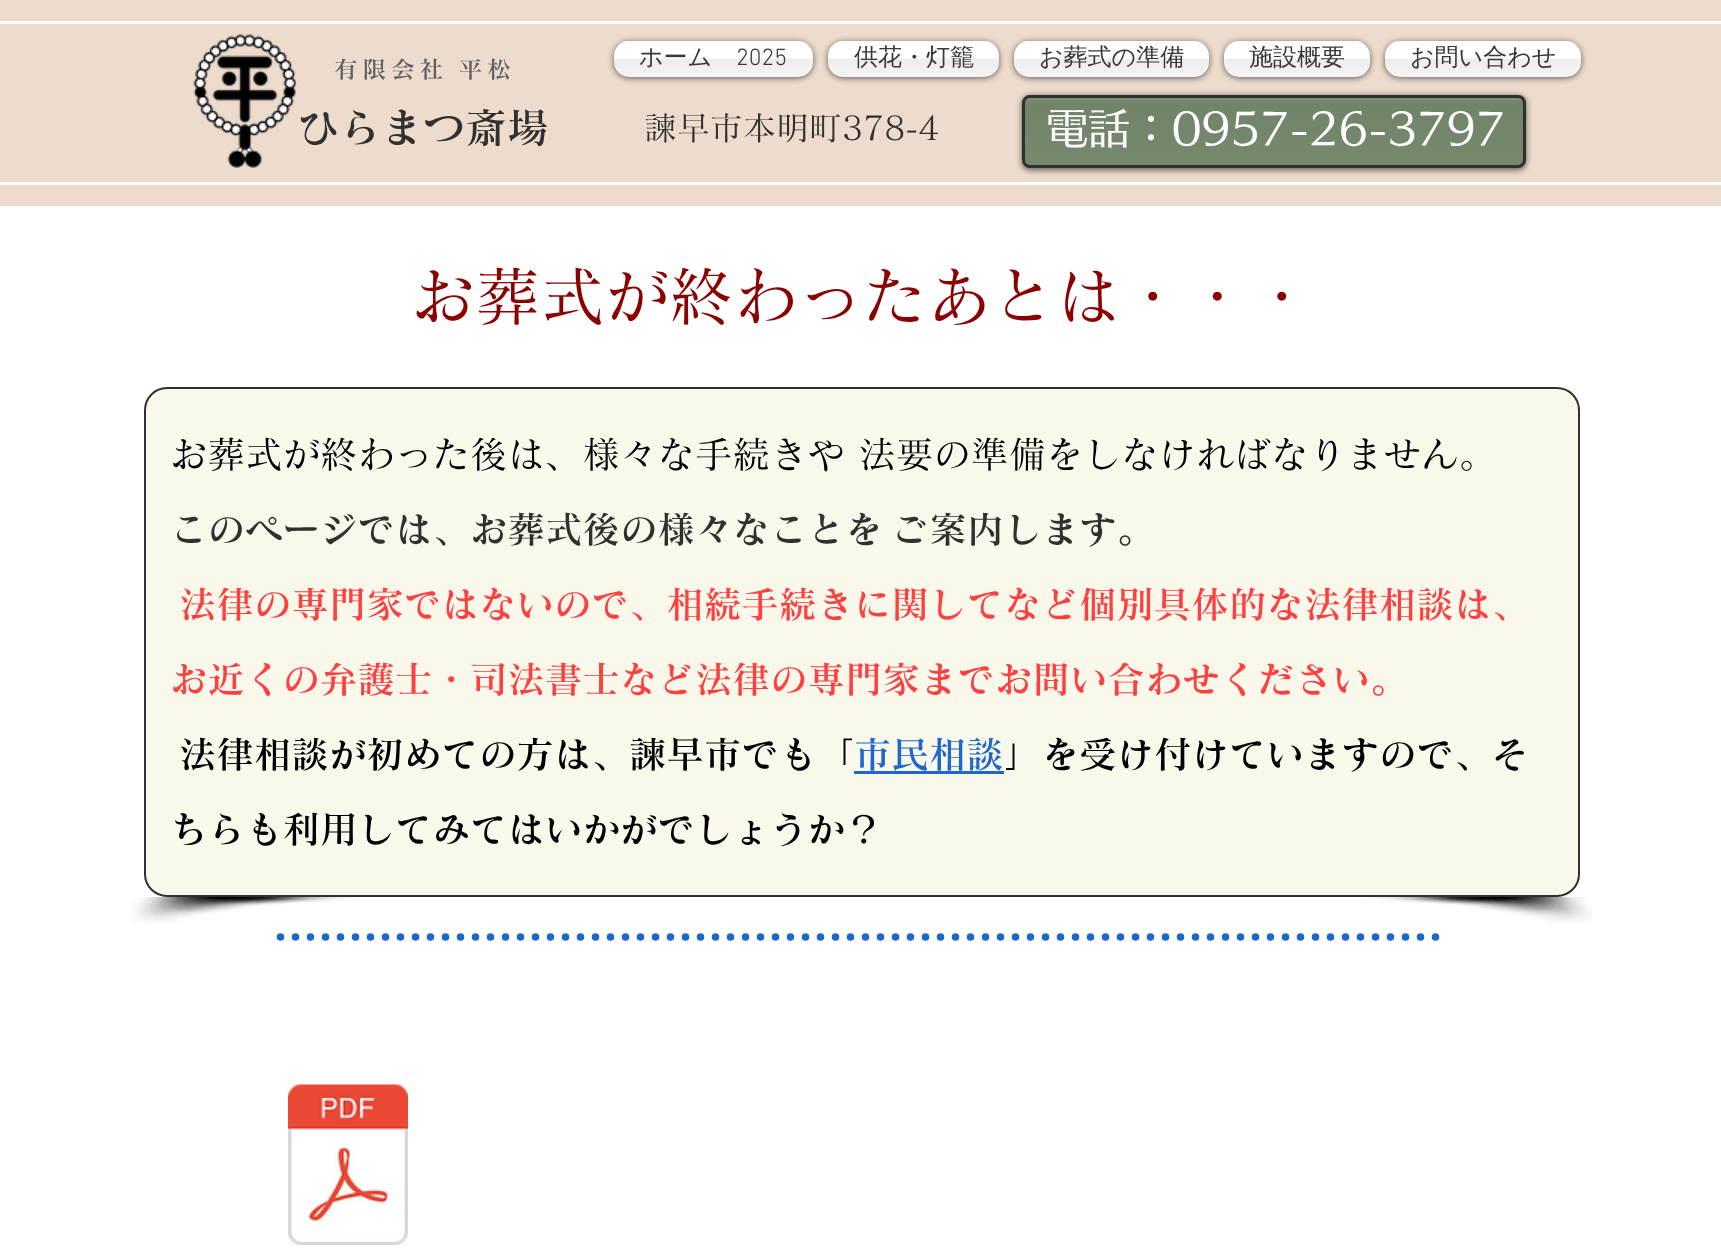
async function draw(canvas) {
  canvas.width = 1721;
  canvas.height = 1258;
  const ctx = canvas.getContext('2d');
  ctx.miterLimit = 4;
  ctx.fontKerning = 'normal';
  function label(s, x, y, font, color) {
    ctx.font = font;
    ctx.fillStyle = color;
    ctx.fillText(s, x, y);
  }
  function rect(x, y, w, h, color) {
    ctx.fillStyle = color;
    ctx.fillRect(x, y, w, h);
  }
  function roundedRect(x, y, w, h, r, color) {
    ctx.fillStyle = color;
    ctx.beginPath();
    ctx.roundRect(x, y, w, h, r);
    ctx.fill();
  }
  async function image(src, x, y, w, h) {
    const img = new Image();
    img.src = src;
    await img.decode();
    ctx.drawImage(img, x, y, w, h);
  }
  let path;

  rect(0, 0, 1721, 1258, '#fff');
  rect(0, 0, 1721, 206, '#eddccd');
  rect(0, 21, 1721, 3, '#fff');
  rect(0, 182, 1721, 3, '#fff');
  await image('assets/img1.png', 193, 34, 104, 134);
  ctx.letterSpacing = '4.5px';
  label('有限会社 平松', 334, 78, '600 24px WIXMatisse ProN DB', '#606060');
  ctx.letterSpacing = '0px';
  label('ひらまつ斎場', 297, 143, '600 42px WIXMatisse ProN DB', '#303030');
  ctx.fillStyle = '#00000099';
  ctx.filter = 'blur(3px)';
  ctx.beginPath();
  ctx.roundRect(614, 42, 199, 36, 15);
  ctx.fill();
  ctx.filter = 'none';
  roundedRect(614, 41, 199, 36, 15, '#fff');
  await image('assets/img2.png', 614, 41, 199, 36);
  label('ホーム', 639, 65, '500 24px WenQuanYi Zen Hei', '#383838');
  label('2025', 736, 65, '300 24px "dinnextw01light"', '#383838');
  ctx.fillStyle = '#00000099';
  ctx.filter = 'blur(3px)';
  ctx.beginPath();
  ctx.roundRect(828, 42, 171, 36, 15);
  ctx.fill();
  ctx.filter = 'none';
  roundedRect(828, 41, 171, 36, 15, '#fff');
  await image('assets/img3.png', 828, 41, 171, 36);
  label('供花・灯籠', 854, 65, '500 24px WenQuanYi Zen Hei', '#383838');
  ctx.fillStyle = '#00000099';
  ctx.filter = 'blur(3px)';
  ctx.beginPath();
  ctx.roundRect(1014, 42, 195, 36, 15);
  ctx.fill();
  ctx.filter = 'none';
  roundedRect(1014, 41, 195, 36, 15, '#fff');
  await image('assets/img4.png', 1014, 41, 195, 36);
  label('お葬式の準備', 1039, 65, '500 24px WenQuanYi Zen Hei', '#383838');
  ctx.fillStyle = '#00000099';
  ctx.filter = 'blur(3px)';
  ctx.beginPath();
  ctx.roundRect(1224, 42, 146, 36, 15);
  ctx.fill();
  ctx.filter = 'none';
  roundedRect(1224, 41, 146, 36, 15, '#fff');
  await image('assets/img5.png', 1224, 41, 146, 36);
  label('施設概要', 1249, 65, '500 24px WenQuanYi Zen Hei', '#383838');
  ctx.fillStyle = '#00000099';
  ctx.filter = 'blur(3px)';
  ctx.beginPath();
  ctx.roundRect(1385, 42, 196, 36, 15);
  ctx.fill();
  ctx.filter = 'none';
  roundedRect(1385, 41, 196, 36, 15, '#fff');
  await image('assets/img6.png', 1384, 41, 197, 36);
  label('お問い合わせ', 1410, 65, '500 24px WenQuanYi Zen Hei', '#383838');
  label('諫早市本明町378-4', 644, 140, '500 33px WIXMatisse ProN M', '#303030');
  ctx.fillStyle = '#00000099';
  ctx.filter = 'blur(3px)';
  ctx.beginPath();
  ctx.roundRect(1022, 96, 504, 74, 8);
  ctx.fill();
  ctx.filter = 'none';
  roundedRect(1022, 95, 504, 73, 8, '#7d9174');
  await image('assets/img7.png', 1021, 100, 505, 68);
  ctx.beginPath();
  ctx.roundRect(1023.5, 96.5, 501, 70, 6.5);
  ctx.strokeStyle = '#303030';
  ctx.lineWidth = 3;
  ctx.stroke();
  label('電話：0957-26-3797', 1046, 144, '500 42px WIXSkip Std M', '#fff');
  label('お葬式が終わったあとは・・・', 411, 320, '500 64.5px WIXMatisse ProN M', '#8b0000');
  ctx.fillStyle = '#faf8eb';
  ctx.beginPath();
  ctx.roundRect(145, 388, 1434, 508, 22);
  ctx.fill();
  ctx.lineWidth = 2;
  ctx.stroke();
  label('お葬式が終わった後は、様々な手続きや 法要の準備をしなければなりません。', 170, 468, '500 37.5px WIXMatisse ProN M', '#000');
  label('このページでは、お葬式後の様々なことを ご案内します。', 170, 543, '600 37.5px WIXMatisse ProN DB', '#303030');
  label('法律の専門家ではないので、相続手続きに関してなど個別具体的な法律相談は、', 179, 618, '600 37.5px WIXMatisse ProN DB', '#ff4040');
  label('お近くの弁護士・司法書士など法律の専門家までお問い合わせください。', 170, 693, '600 37.5px WIXMatisse ProN DB', '#ff4040');
  label('法律相談が初めての方は、諫早市でも「', 179, 768, '600 37.5px WIXMatisse ProN DB', '#000');
  label('市民相談', 854, 768, '600 37.5px WIXMatisse ProN DB', '#1d67cd');
  rect(854, 771, 150, 3, '#1d67cd');
  label('」を受け付けていますので、そ', 1004, 768, '600 37.5px WIXMatisse ProN DB', '#000');
  label('ちらも利用してみてはいかがでしょうか？', 170, 843, '600 37.5px WIXMatisse ProN DB', '#000');
  await image('assets/img8.png', 131, 897, 230, 26);
  await image('assets/img9.png', 1362, 897, 230, 26);
  path = new Path2D('M280.5 937H1444.5');
  ctx.strokeStyle = '#1d67cd';
  ctx.lineWidth = 7.5;
  ctx.lineCap = 'round';
  ctx.setLineDash([0, 15]);
  ctx.stroke(path);
  await image('assets/img10.png', 288, 1084, 120, 161);
}

draw(document.querySelector('canvas'));
